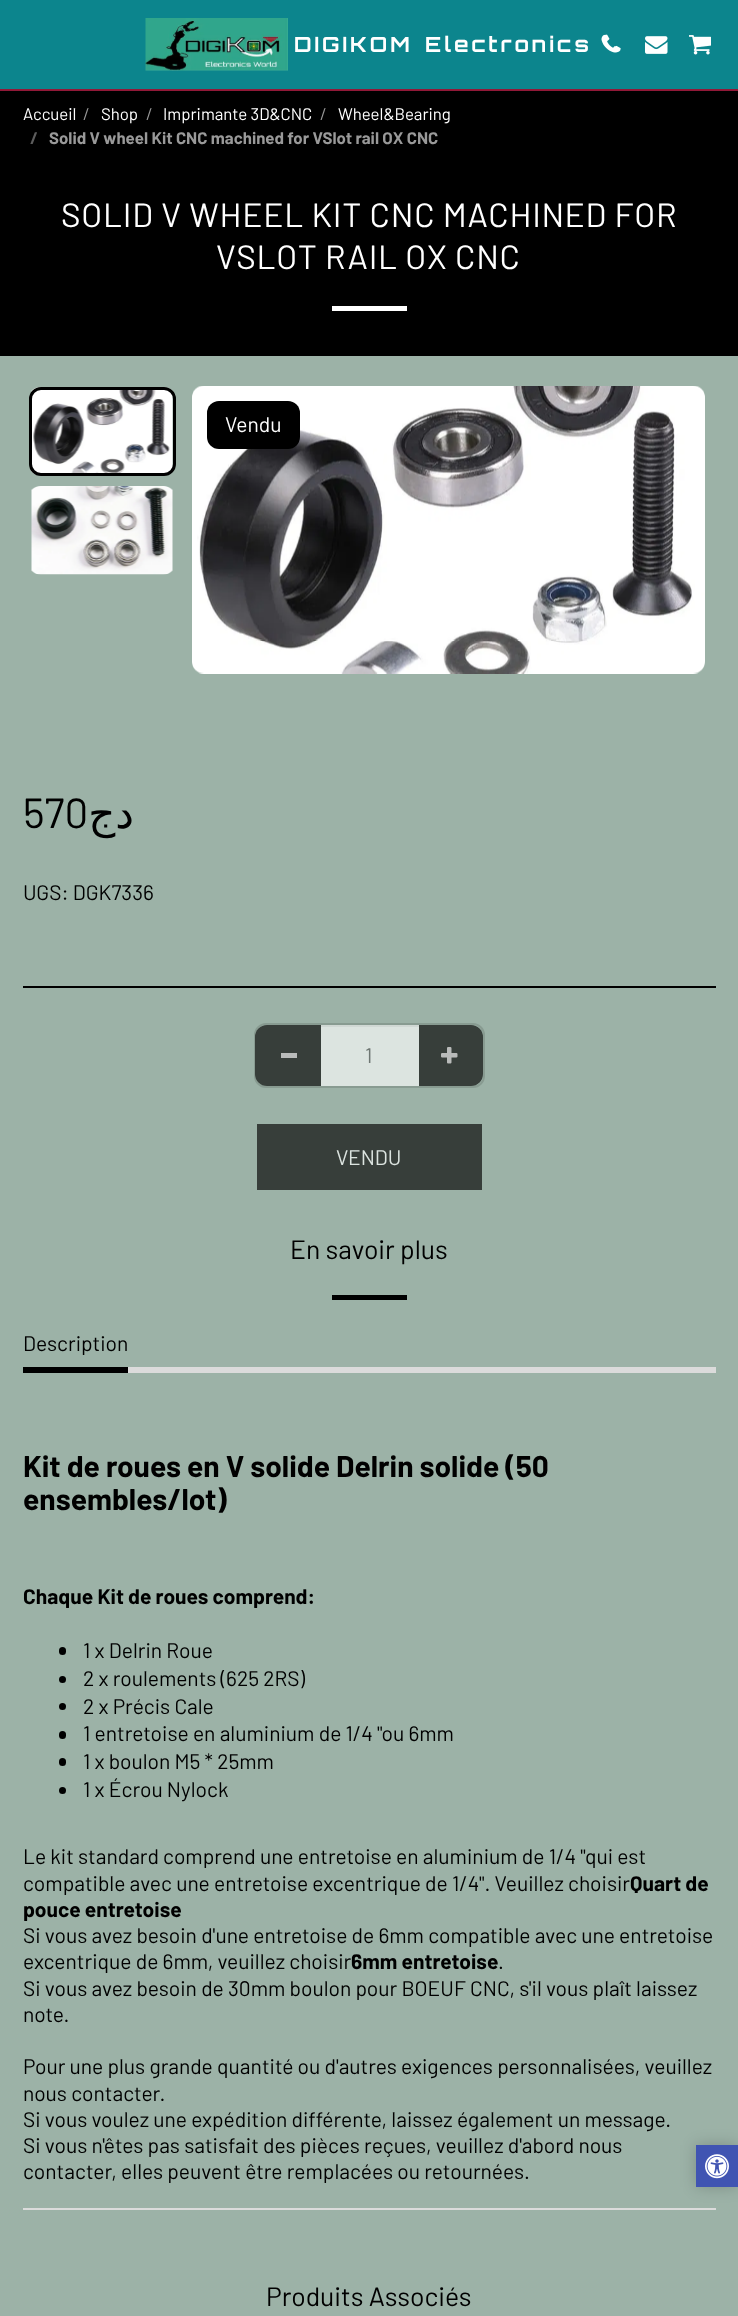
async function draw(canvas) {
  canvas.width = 738;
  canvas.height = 2316;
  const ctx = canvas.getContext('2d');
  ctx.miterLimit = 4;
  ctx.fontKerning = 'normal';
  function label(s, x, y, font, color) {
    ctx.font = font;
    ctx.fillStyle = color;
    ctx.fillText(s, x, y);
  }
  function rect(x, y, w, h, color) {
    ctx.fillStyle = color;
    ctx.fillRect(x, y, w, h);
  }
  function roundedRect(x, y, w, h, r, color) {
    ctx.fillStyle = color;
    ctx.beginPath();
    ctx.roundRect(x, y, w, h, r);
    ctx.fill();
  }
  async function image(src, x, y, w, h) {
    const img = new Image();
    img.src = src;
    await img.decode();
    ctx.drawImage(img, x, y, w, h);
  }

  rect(0, 0, 738, 2316, '#9cb2a7');
  rect(0, 0, 738, 89, '#0c858d');
  rect(0, 89, 738, 2, '#911938');
  await image('assets/img1.png', 145, 18, 143, 53);
  ctx.letterSpacing = '3px';
  ctx.wordSpacing = '3px';
  label('DIGIKOM Electronics', 294, 52, 'bold 21px Orbitron', '#fff');
  await image('assets/img2.png', 605, 34, 16, 19);
  await image('assets/img3.png', 601, 34, 18, 19);
  await image('assets/img4.png', 645, 36, 23, 18);
  await image('assets/img5.png', 689, 35, 22, 20);
  rect(0, 91, 738, 265, '#000');
  ctx.letterSpacing = '0px';
  ctx.wordSpacing = '0px';
  label('Accueil', 23, 120, '16.8px Barlow', '#fff');
  label('/', 83, 120, '16.8px Barlow', '#999');
  label('Shop', 101, 120, '16.8px Barlow', '#fff');
  label('/', 146, 120, '16.8px Barlow', '#999');
  label('Imprimante 3D&CNC', 163, 120, '16.8px Barlow', '#fff');
  label('/', 320, 120, '16.8px Barlow', '#999');
  label('Wheel&Bearing', 338, 120, '16.8px Barlow', '#fff');
  label('/', 30, 144, 'bold 16.8px Barlow', '#5c5c5c');
  label('Solid V wheel Kit CNC machined for VSlot rail OX CNC', 49, 144, 'bold 16.8px Barlow', '#999');
  ctx.letterSpacing = '0.75px';
  label('SOLID V WHEEL KIT CNC MACHINED FOR', 61, 227, '33.6px Barlow', '#fff');
  label('VSLOT RAIL OX CNC', 216, 269, '33.6px Barlow', '#fff');
  rect(332, 306, 75, 5, '#fff');
  await image('assets/img6.png', 31, 387, 142, 89);
  ctx.beginPath();
  ctx.roundRect(30.5, 388.5, 144, 86, 10.5);
  ctx.strokeStyle = '#000';
  ctx.lineWidth = 3;
  ctx.stroke();
  await image('assets/img7.png', 31, 486, 142, 89);
  await image('assets/img8.png', 192, 386, 513, 288);
  roundedRect(207, 401, 93, 48, 12, '#000');
  ctx.letterSpacing = '0px';
  label('Vendu', 225, 432, '21px Barlow', '#fff');
  label('570', 23, 828, '42px Barlow', '#000');
  ctx.direction = 'rtl';
  label('دج', 134, 828, '42px DejaVu Sans', '#000');
  ctx.direction = 'ltr';
  label('UGS: DGK7336', 23, 900, '21px Barlow', '#000');
  rect(23, 986, 693, 2, '#000');
  ctx.beginPath();
  ctx.roundRect(255, 1024, 229, 63, 11);
  ctx.strokeStyle = '#889b91';
  ctx.lineWidth = 2;
  ctx.stroke();
  ctx.fillStyle = '#373e3a';
  ctx.beginPath();
  ctx.roundRect(255, 1025, 68, 61, [12, 0, 0, 12]);
  ctx.fill();
  rect(281, 1053, 16, 5, '#b9bbba');
  ctx.fillStyle = '#373e3a';
  ctx.beginPath();
  ctx.roundRect(417, 1025, 66, 61, [0, 12, 12, 0]);
  ctx.fill();
  rect(321, 1027, 98, 59, '#dce4e0');
  rect(321, 1025, 98, 2, '#d0d8d4');
  label('1', 365, 1063, '21px Barlow', '#6e7672');
  await image('assets/img9.png', 441, 1047, 17, 17);
  rect(257, 1124, 225, 66, '#373e3a');
  label('VENDU', 336, 1165, '21px Barlow', '#dce4e0');
  label('En savoir plus', 290, 1259, '26.5px Barlow', '#000');
  rect(332, 1295, 75, 5, '#000');
  rect(128, 1367, 588, 6, '#dbdbdb');
  rect(23, 1367, 105, 6, '#000');
  label('Description', 23, 1351, '21px Barlow', '#000');
  rect(23, 2208, 693, 2, '#dbdbdb');
  label('Kit de roues en V solide Delrin solide (50', 23, 1477, 'bold 29.9px Barlow', '#000');
  label('ensembles/lot)', 23, 1510, 'bold 29.9px Barlow', '#000');
  label('Chaque Kit de roues comprend:', 23, 1604, 'bold 21px Barlow', '#000');
  roundedRect(59, 1647, 7, 8, 3.5, '#000');
  label('1 x Delrin Roue', 83, 1658, '21px Barlow', '#000');
  ctx.beginPath();
  ctx.arc(62.5, 1679.5, 3.5, 0, 2 * Math.PI);
  ctx.fill();
  label('2 x roulements (625 2RS)', 83, 1686, '21px Barlow', '#000');
  ctx.beginPath();
  ctx.arc(62.5, 1706.5, 3.5, 0, 2 * Math.PI);
  ctx.fill();
  label('2 x Précis Cale', 83, 1714, '21px Barlow', '#000');
  roundedRect(59, 1731, 7, 8, 3.5, '#000');
  label('1 entretoise en aluminium de 1/4 "ou 6mm', 83, 1741, '21px Barlow', '#000');
  roundedRect(59, 1758, 7, 8, 3.5, '#000');
  label('1 x boulon M5 * 25mm', 83, 1769, '21px Barlow', '#000');
  ctx.beginPath();
  ctx.arc(62.5, 1790.5, 3.5, 0, 2 * Math.PI);
  ctx.fill();
  label('1 x Écrou Nylock', 83, 1797, '21px Barlow', '#000');
  label('Le kit standard comprend une entretoise en aluminium de 1/4 "qui est', 23, 1864, '21px Barlow', '#000');
  label('compatible avec une entretoise excentrique de 1/4". Veuillez choisir', 23, 1891, '21px Barlow', '#000');
  label('Quart de', 630, 1891, 'bold 21px Barlow', '#000');
  label('pouce entretoise', 23, 1917, 'bold 21px Barlow', '#000');
  label('Si vous avez besoin d\'une entretoise de 6mm compatible avec une entretoise', 23, 1943, '21px Barlow', '#000');
  label('excentrique de 6mm, veuillez choisir', 23, 1969, '21px Barlow', '#000');
  label('6mm entretoise', 351, 1969, 'bold 21px Barlow', '#000');
  label('.', 498, 1969, '21px Barlow', '#000');
  label('Si vous avez besoin de 30mm boulon pour BOEUF CNC, s\'il vous plaît laissez', 23, 1996, '21px Barlow', '#000');
  label('note.', 23, 2022, '21px Barlow', '#000');
  label('Pour une plus grande quantité ou d\'autres exigences personnalisées, veuillez', 23, 2074, '21px Barlow', '#000');
  label('nous contacter.', 23, 2101, '21px Barlow', '#000');
  label('Si vous voulez une expédition différente, laissez également un message.', 23, 2127, '21px Barlow', '#000');
  label('Si vous n\'êtes pas satisfait des pièces reçues, veuillez d\'abord nous', 23, 2153, '21px Barlow', '#000');
  label('contacter, elles peuvent être remplacées ou retournées.', 23, 2179, '21px Barlow', '#000');
  label('Produits Associés', 266, 2306, '26.5px Barlow', '#000');
  ctx.fillStyle = '#00000033';
  ctx.filter = 'blur(7.5px)';
  ctx.beginPath();
  ctx.rect(696, 2145, 42, 42);
  ctx.fill();
  ctx.filter = 'none';
  rect(696, 2145, 42, 42, '#4054b2');
  await image('assets/img10.png', 705, 2154, 24, 25);
}

draw(document.querySelector('canvas'));
